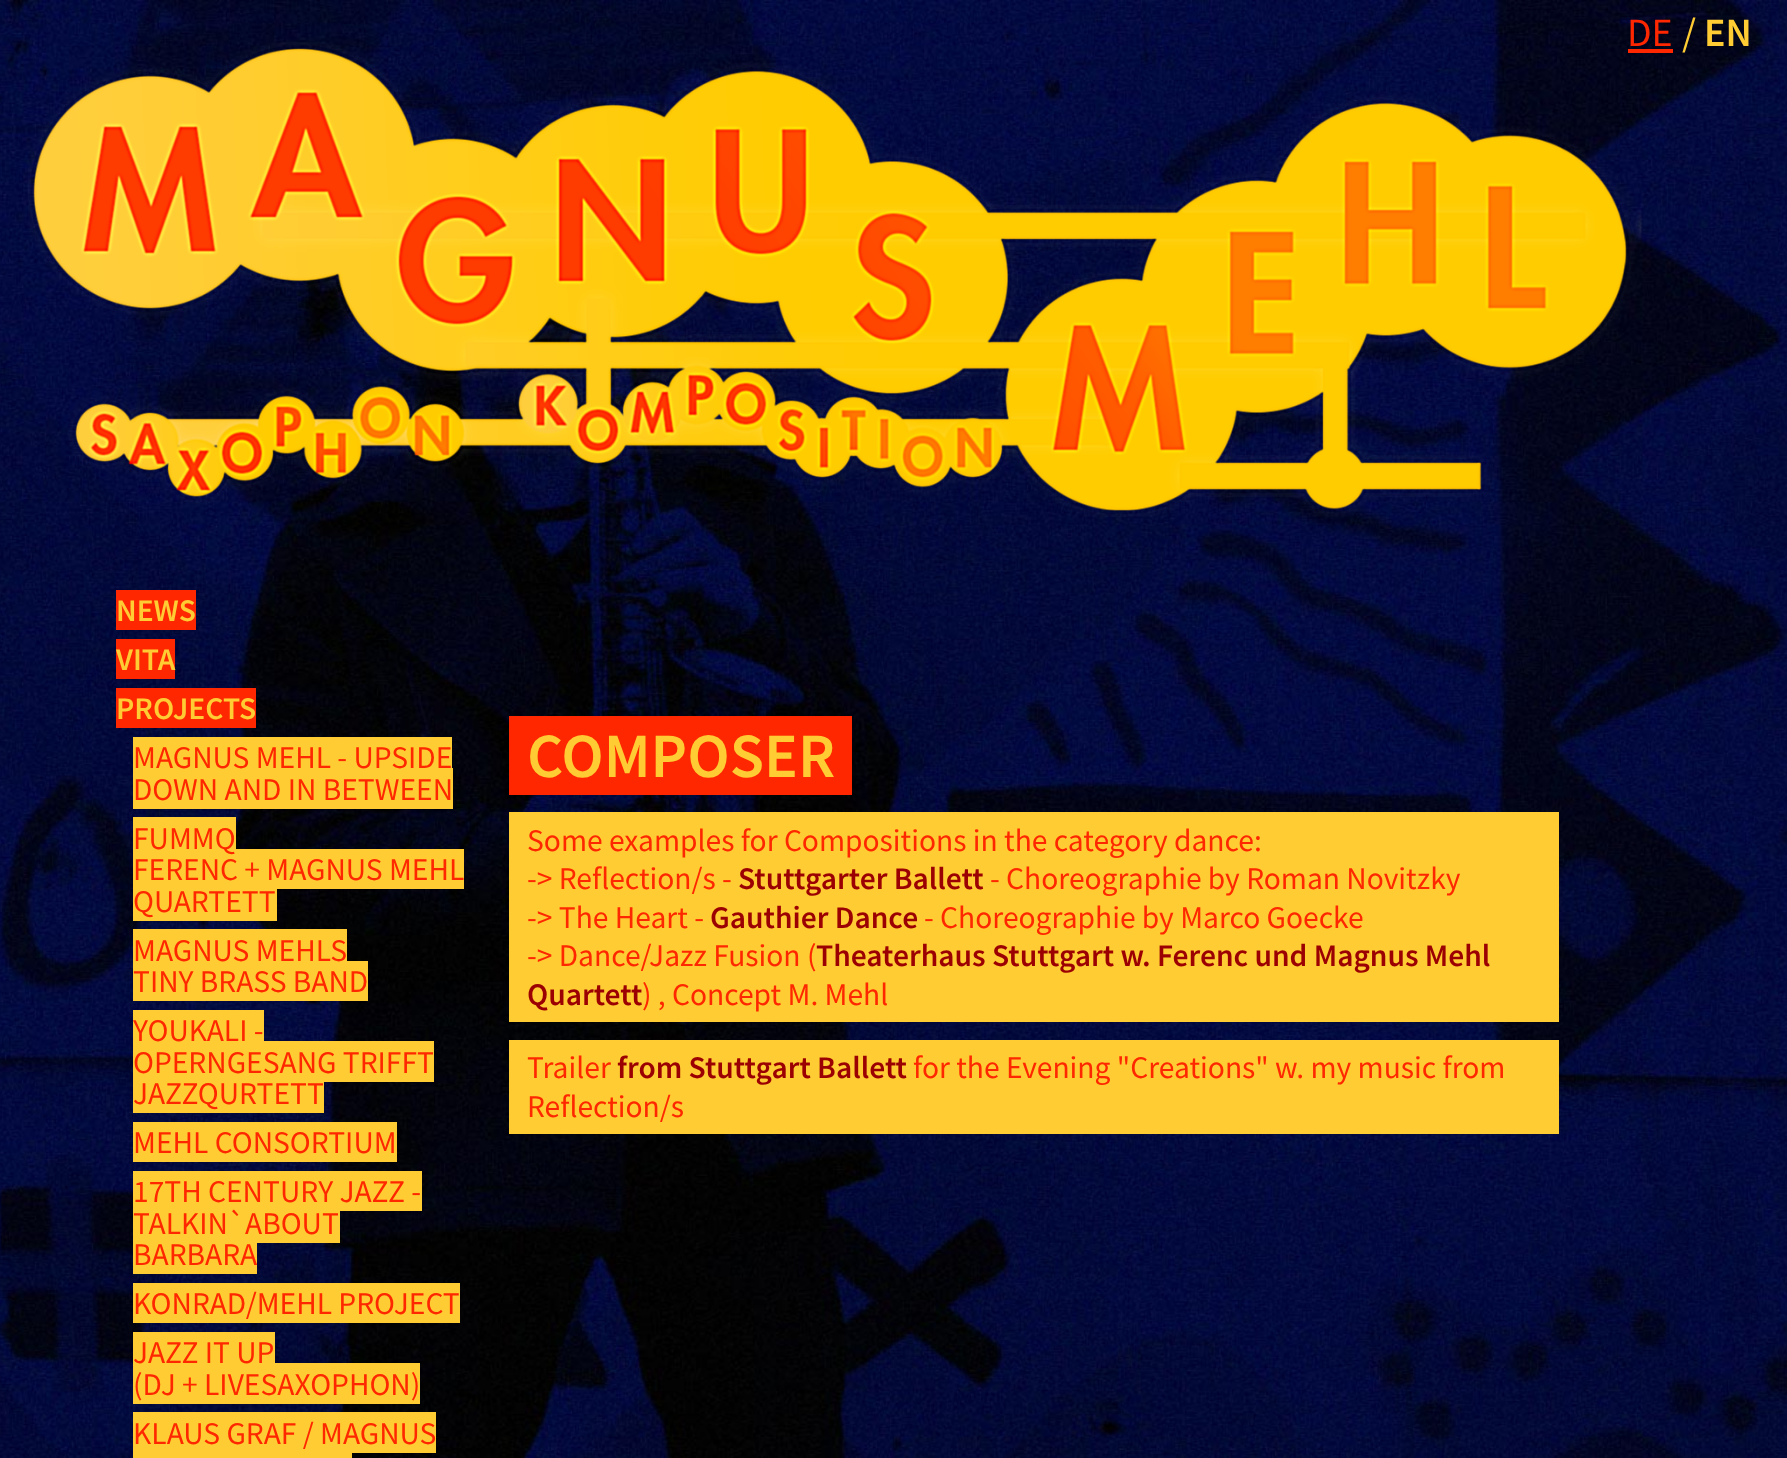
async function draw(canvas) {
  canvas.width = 1787;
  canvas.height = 1458;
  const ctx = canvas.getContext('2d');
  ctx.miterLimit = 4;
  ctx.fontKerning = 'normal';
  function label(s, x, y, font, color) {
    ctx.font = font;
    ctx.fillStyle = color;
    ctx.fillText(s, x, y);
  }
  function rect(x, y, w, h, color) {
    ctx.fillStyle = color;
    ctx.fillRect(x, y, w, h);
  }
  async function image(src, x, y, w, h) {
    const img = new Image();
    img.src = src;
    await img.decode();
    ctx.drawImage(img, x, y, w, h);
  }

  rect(0, 0, 1787, 1458, '#fff');
  await image('assets/img1.png', 0, 0, 1787, 1458);
  await image('assets/img2.png', 28, 42, 1614, 475);
  label('DE', 1627, 46, '40px Source Sans Pro', '#ff2700');
  rect(1628, 49, 45, 4, '#ff2700');
  label('/', 1682, 46, '40px Source Sans Pro', '#fc3');
  label('EN', 1704, 46, '600 40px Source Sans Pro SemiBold', '#fc3');
  rect(116, 590, 80, 40, '#ff2700');
  label('NEWS', 116, 621, '600 31.5px Source Sans Pro SemiBold', '#fc3');
  rect(116, 639, 59, 40, '#ff2700');
  label('VITA', 116, 670, '600 31.5px Source Sans Pro SemiBold', '#fc3');
  rect(116, 688, 140, 40, '#ff2700');
  label('PROJECTS', 116, 719, '600 31.5px Source Sans Pro SemiBold', '#fc3');
  rect(133, 737, 319, 31, '#fc3');
  rect(133, 768, 320, 41, '#fc3');
  label('MAGNUS MEHL - UPSIDE', 133, 768, '31.5px Source Sans Pro', '#ff2700');
  label('DOWN AND IN BETWEEN', 133, 800, '31.5px Source Sans Pro', '#ff2700');
  rect(133, 817, 103, 32, '#fc3');
  rect(133, 849, 331, 40, '#fc3');
  label('FUMMQ', 133, 849, '31.5px Source Sans Pro', '#ff2700');
  label('FERENC + MAGNUS MEHL', 133, 880, '31.5px Source Sans Pro', '#ff2700');
  rect(133, 889, 144, 32, '#fc3');
  label('QUARTETT', 133, 912, '31.5px Source Sans Pro', '#ff2700');
  rect(133, 929, 214, 32, '#fc3');
  rect(133, 961, 235, 40, '#fc3');
  label('MAGNUS MEHLS', 133, 961, '31.5px Source Sans Pro', '#ff2700');
  label('TINY BRASS BAND', 133, 992, '31.5px Source Sans Pro', '#ff2700');
  rect(133, 1010, 131, 31, '#fc3');
  rect(133, 1041, 301, 41, '#fc3');
  label('YOUKALI -', 133, 1041, '31.5px Source Sans Pro', '#ff2700');
  label('OPERNGESANG TRIFFT', 133, 1073, '31.5px Source Sans Pro', '#ff2700');
  rect(133, 1082, 191, 31, '#fc3');
  label('JAZZQURTETT', 133, 1104, '31.5px Source Sans Pro', '#ff2700');
  rect(133, 1122, 264, 40, '#fc3');
  label('MEHL CONSORTIUM', 133, 1153, '31.5px Source Sans Pro', '#ff2700');
  rect(133, 1171, 289, 40, '#fc3');
  label('17TH CENTURY JAZZ -', 133, 1202, '31.5px Source Sans Pro', '#ff2700');
  rect(133, 1211, 207, 32, '#fc3');
  label('TALKIN`ABOUT', 133, 1234, '31.5px Source Sans Pro', '#ff2700');
  rect(133, 1243, 124, 31, '#fc3');
  label('BARBARA', 133, 1265, '31.5px Source Sans Pro', '#ff2700');
  rect(133, 1283, 327, 40, '#fc3');
  label('KONRAD/MEHL PROJECT', 133, 1314, '31.5px Source Sans Pro', '#ff2700');
  rect(133, 1332, 142, 31, '#fc3');
  rect(133, 1363, 287, 41, '#fc3');
  label('JAZZ IT UP', 133, 1363, '31.5px Source Sans Pro', '#ff2700');
  label('(DJ + LIVESAXOPHON)', 133, 1395, '31.5px Source Sans Pro', '#ff2700');
  rect(133, 1412, 303, 41, '#fc3');
  label('KLAUS GRAF / MAGNUS', 133, 1444, '31.5px Source Sans Pro', '#ff2700');
  rect(133, 1453, 219, 5, '#fc3');
  rect(509, 716, 343, 79, '#ff2700');
  label('COMPOSER', 527, 777, '600 63px Source Sans Pro SemiBold', '#fc3');
  rect(509, 812, 1050, 210, '#fc3');
  label('Some examples for Compositions in the category dance:', 527, 851, '31.5px Source Sans Pro', '#ff2700');
  label('-> Reflection/s -', 527, 889, '31.5px Source Sans Pro', '#ff2700');
  label('Stuttgarter Ballett', 738, 889, '600 31.5px Source Sans Pro SemiBold', '#9b0002');
  label('- Choreographie by Roman Novitzky', 990, 889, '31.5px Source Sans Pro', '#ff2700');
  label('-> The Heart -', 527, 928, '31.5px Source Sans Pro', '#ff2700');
  label('Gauthier Dance', 710, 928, '600 31.5px Source Sans Pro SemiBold', '#9b0002');
  label('- Choreographie by Marco Goecke', 924, 928, '31.5px Source Sans Pro', '#ff2700');
  label('-> Dance/Jazz Fusion (', 527, 966, '31.5px Source Sans Pro', '#ff2700');
  label('Theaterhaus Stuttgart w. Ferenc und Magnus Mehl', 816, 966, '600 31.5px Source Sans Pro SemiBold', '#9b0002');
  label('Quartett', 527, 1005, '600 31.5px Source Sans Pro SemiBold', '#9b0002');
  label(') , Concept M. Mehl', 642, 1005, '31.5px Source Sans Pro', '#ff2700');
  rect(509, 1040, 1050, 94, '#fc3');
  label('Trailer', 527, 1078, '31.5px Source Sans Pro', '#ff2700');
  label('from Stuttgart Ballett', 617, 1078, '600 31.5px Source Sans Pro SemiBold', '#9b0002');
  label('for the Evening "Creations" w. my music from', 913, 1078, '31.5px Source Sans Pro', '#ff2700');
  label('Reflection/s', 527, 1117, '31.5px Source Sans Pro', '#ff2700');
}

draw(document.querySelector('canvas'));
